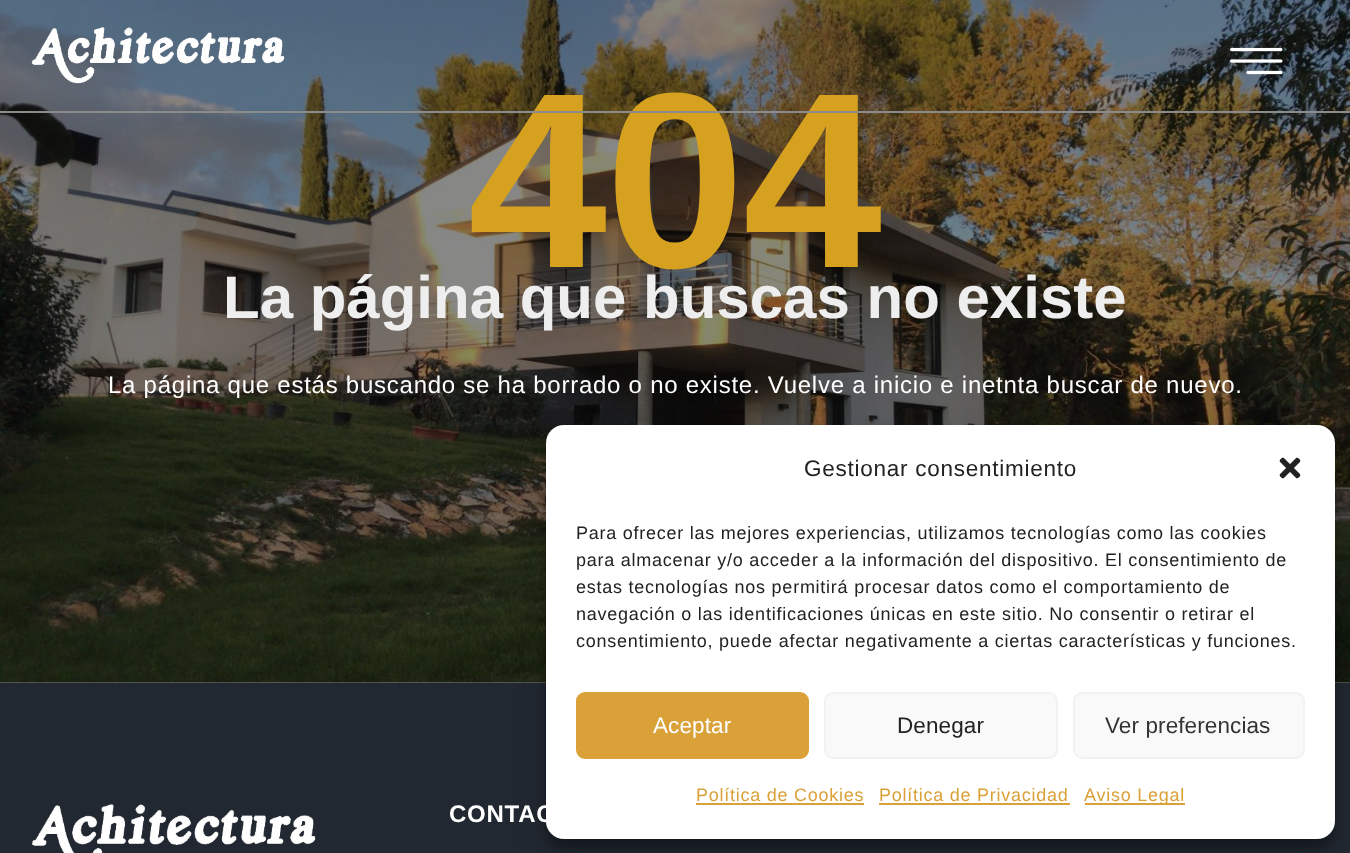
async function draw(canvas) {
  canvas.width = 1350;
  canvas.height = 853;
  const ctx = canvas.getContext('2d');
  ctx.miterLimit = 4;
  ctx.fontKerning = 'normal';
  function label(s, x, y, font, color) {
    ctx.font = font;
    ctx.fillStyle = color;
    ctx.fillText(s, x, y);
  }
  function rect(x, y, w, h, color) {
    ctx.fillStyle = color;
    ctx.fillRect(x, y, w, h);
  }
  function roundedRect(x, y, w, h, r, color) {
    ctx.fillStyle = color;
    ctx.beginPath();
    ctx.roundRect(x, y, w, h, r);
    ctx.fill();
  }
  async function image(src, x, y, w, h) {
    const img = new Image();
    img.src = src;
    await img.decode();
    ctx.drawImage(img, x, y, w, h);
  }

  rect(0, 0, 1350, 853, '#878787');
  await image('assets/img3.png', 0, 0, 1350, 683);
  ctx.letterSpacing = '-1.5px';
  label('404', 468, 267, 'bold 250px Liberation Sans', '#d7a120');
  rect(0, 111, 1350, 2, '#8b8b8b');
  await image('assets/img1.png', 31, 27, 254, 57);
  await image('assets/img2.png', 1230, 47, 53, 28);
  ctx.letterSpacing = '0px';
  label('La página que buscas no existe', 223, 318, 'bold 60px Liberation Sans', '#eee');
  ctx.letterSpacing = '0.75px';
  label('La página que estás buscando se ha borrado o no existe. Vuelve a inicio e inetnta buscar de nuevo.', 108, 393, '24px Liberation Sans', '#fff');
  rect(0, 683, 1350, 170, '#222831');
  ctx.fillStyle = '#0000003b';
  ctx.filter = 'blur(4.5px)';
  ctx.beginPath();
  ctx.roundRect(546, 434, 789, 414, 18);
  ctx.fill();
  ctx.filter = 'none';
  ctx.fillStyle = '#00000030';
  ctx.filter = 'blur(15px)';
  ctx.beginPath();
  ctx.roundRect(546, 440, 789, 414, 18);
  ctx.fill();
  ctx.filter = 'none';
  roundedRect(546, 425, 789, 414, 18, '#fff');
  label('Gestionar consentimiento', 804, 476, '22.5px Liberation Sans', '#222');
  await image('assets/img4.png', 1279, 457, 22, 22);
  label('Para ofrecer las mejores experiencias, utilizamos tecnologías como las cookies', 576, 539, '18px Liberation Sans', '#222');
  label('para almacenar y/o acceder a la información del dispositivo. El consentimiento de', 576, 566, '18px Liberation Sans', '#222');
  label('estas tecnologías nos permitirá procesar datos como el comportamiento de', 576, 593, '18px Liberation Sans', '#222');
  label('navegación o las identificaciones únicas en este sitio. No consentir o retirar el', 576, 620, '18px Liberation Sans', '#222');
  label('consentimiento, puede afectar negativamente a ciertas características y funciones.', 576, 647, '18px Liberation Sans', '#222');
  ctx.fillStyle = '#daa138';
  ctx.beginPath();
  ctx.roundRect(577, 693, 231, 65, 8);
  ctx.fill();
  ctx.strokeStyle = '#daa138';
  ctx.lineWidth = 2;
  ctx.stroke();
  ctx.letterSpacing = '0.1px';
  label('Aceptar', 653, 733, '22.5px Liberation Sans', '#fff');
  ctx.fillStyle = '#f9f9f9';
  ctx.beginPath();
  ctx.roundRect(825, 693, 232, 65, 8);
  ctx.fill();
  ctx.strokeStyle = '#f2f2f2';
  ctx.stroke();
  label('Denegar', 897, 733, '22.5px Liberation Sans', '#222');
  ctx.fillStyle = '#f9f9f9';
  ctx.beginPath();
  ctx.roundRect(1074, 693, 230, 65, 8);
  ctx.fill();
  ctx.stroke();
  label('Ver preferencias', 1105, 733, '22.5px Liberation Sans', '#333');
  ctx.letterSpacing = '0.75px';
  label('Política de Cookies', 696, 801, '18px Liberation Sans', '#daa138');
  rect(696, 803, 168, 2, '#daa138');
  label('Política de Privacidad', 879, 801, '18px Liberation Sans', '#daa138');
  rect(879, 803, 191, 2, '#daa138');
  rect(1085, 803, 100, 2, '#daa138');
  label('Aviso Legal', 1084, 801, '18px Liberation Sans', '#daa138');
  await image('assets/img5.png', 32, 804, 284, 49);
  label('CONTAC', 449, 822, 'bold 24px Liberation Sans', '#fff');
}

draw(document.querySelector('canvas'));
